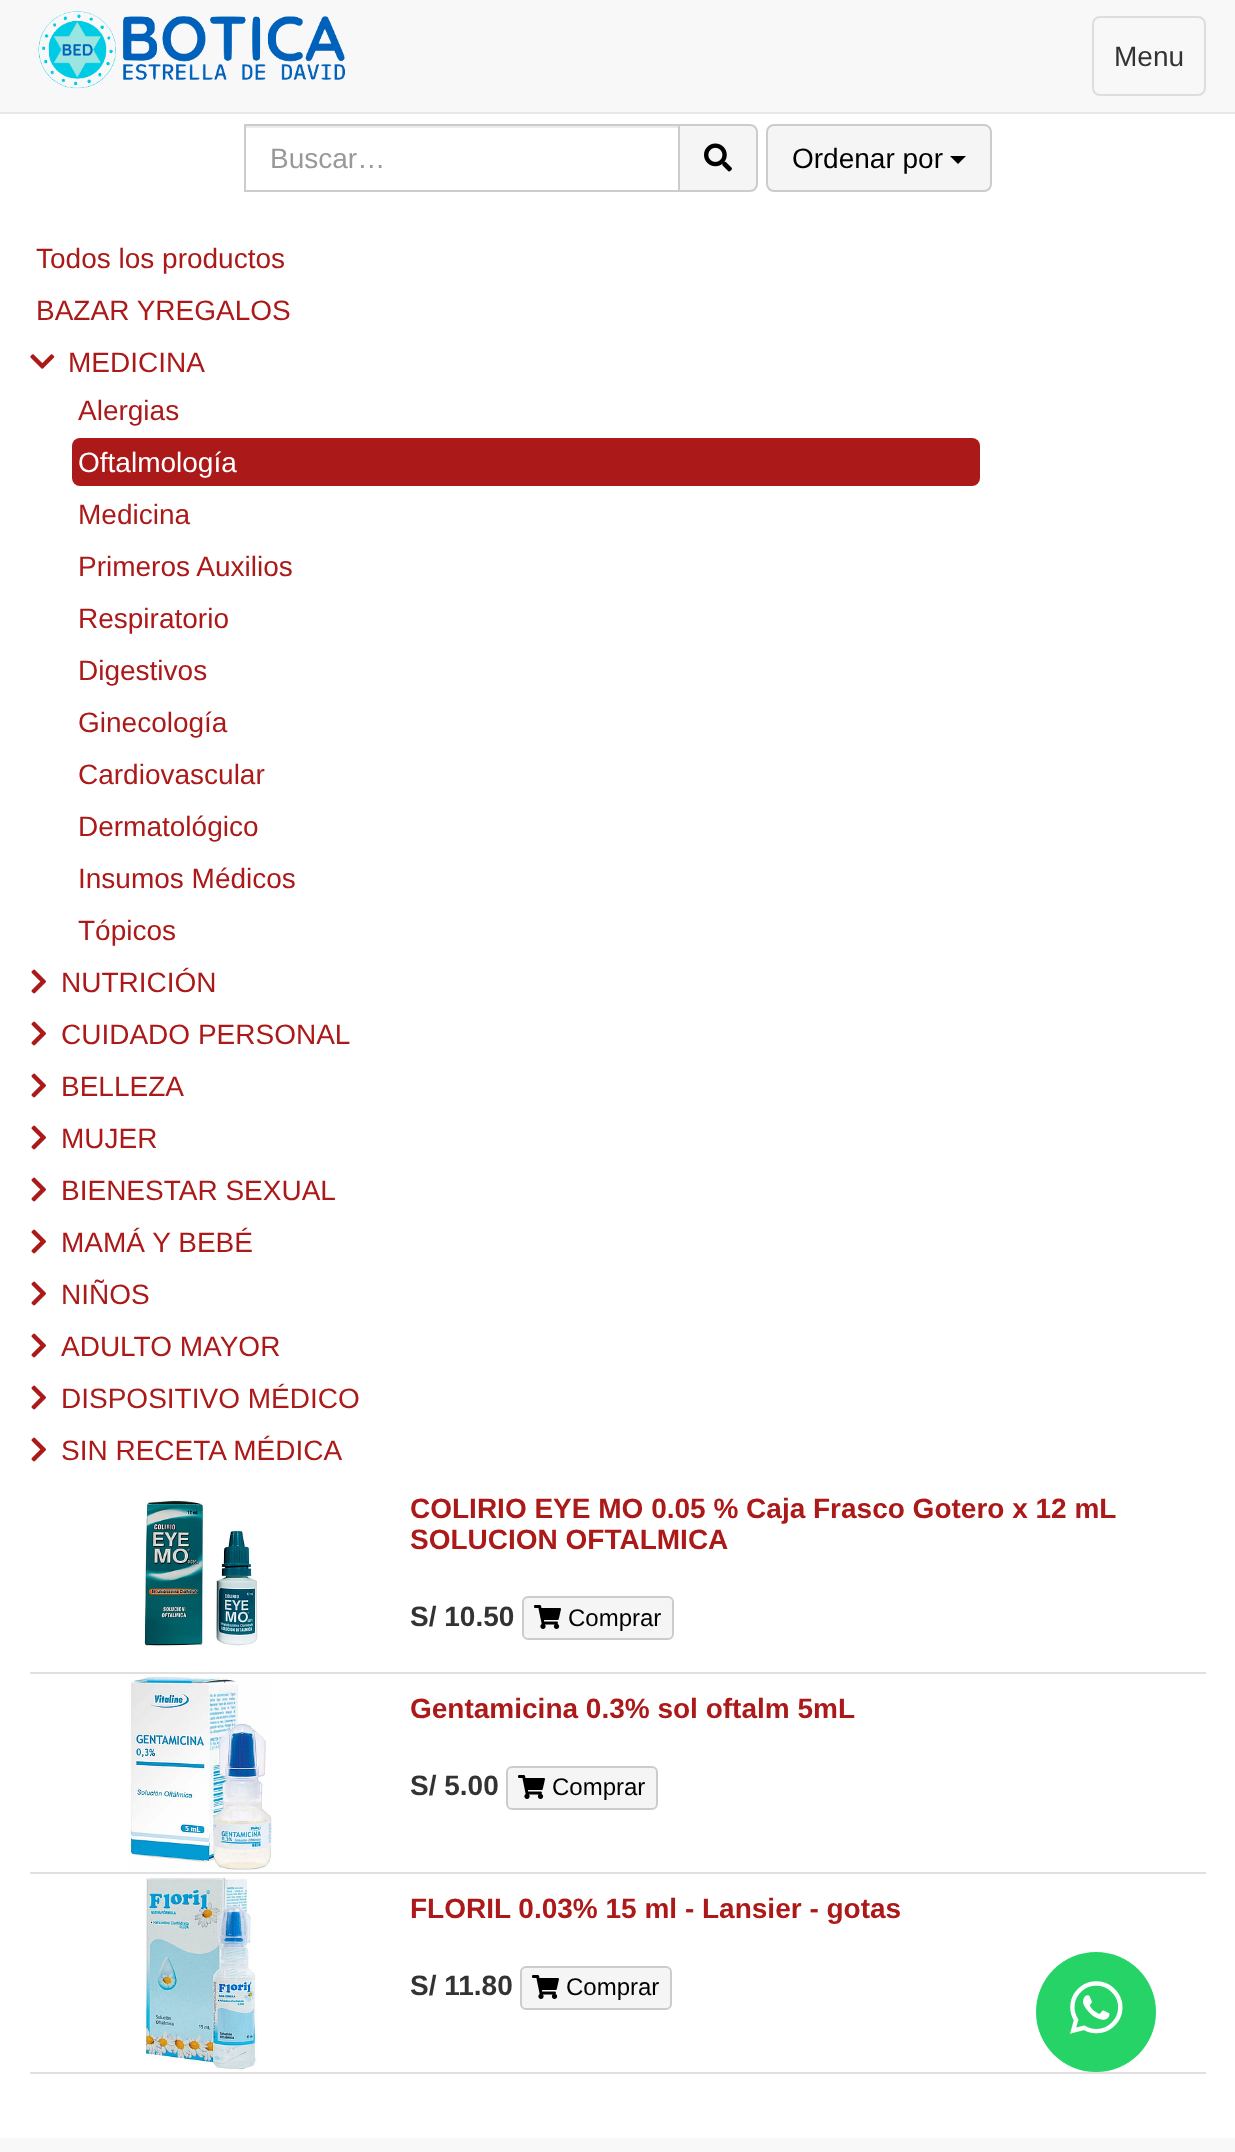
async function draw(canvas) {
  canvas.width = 1235;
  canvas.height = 2152;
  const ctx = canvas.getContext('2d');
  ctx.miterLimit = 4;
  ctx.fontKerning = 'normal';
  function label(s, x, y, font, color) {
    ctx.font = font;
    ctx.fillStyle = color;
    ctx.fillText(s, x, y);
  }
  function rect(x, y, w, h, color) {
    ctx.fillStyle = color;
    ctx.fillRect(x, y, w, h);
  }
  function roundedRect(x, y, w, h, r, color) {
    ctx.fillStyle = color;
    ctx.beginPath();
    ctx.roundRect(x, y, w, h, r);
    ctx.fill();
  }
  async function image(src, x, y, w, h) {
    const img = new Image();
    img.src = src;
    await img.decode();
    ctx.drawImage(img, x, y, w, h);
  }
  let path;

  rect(0, 0, 1235, 2152, '#fff');
  rect(0, 0, 1235, 112, '#f8f8f8');
  rect(0, 112, 1235, 2, '#e7e7e7');
  await image('assets/img1.png', 38, 11, 307, 78);
  ctx.beginPath();
  ctx.roundRect(1093, 17, 112, 78, 7);
  ctx.strokeStyle = '#ddd';
  ctx.lineWidth = 2;
  ctx.stroke();
  label('Menu', 1114, 66, '28px Liberation Sans', '#333');
  rect(246, 126, 432, 2, '#ececec');
  ctx.strokeStyle = '#ccc';
  ctx.strokeRect(245, 125, 434, 66);
  label('Buscar…', 270, 168, '28px Liberation Sans', '#999');
  ctx.fillStyle = '#f5f5f5';
  ctx.beginPath();
  ctx.roundRect(679, 125, 78, 66, [0, 7, 7, 0]);
  ctx.fill();
  ctx.stroke();
  await image('assets/img2.png', 704, 143, 28, 29);
  ctx.beginPath();
  ctx.roundRect(767, 125, 224, 66, 7);
  ctx.fill();
  ctx.stroke();
  label('Ordenar por', 792, 168, '28px Liberation Sans', '#000');
  path = new Path2D('M950 156H966L958 164Z');
  ctx.fill(path);
  label('Todos los productos', 36, 268, '28px Liberation Sans', '#ab1919');
  label('BAZAR YREGALOS', 36, 320, '28px Liberation Sans', '#ab1919');
  await image('assets/img3.png', 30, 354, 25, 15);
  label('MEDICINA', 68, 372, '28px Liberation Sans', '#ab1919');
  label('Alergias', 78, 420, '28px Liberation Sans', '#ab1919');
  roundedRect(72, 438, 908, 48, 8, '#ab1919');
  label('Oftalmología', 78, 472, '28px Liberation Sans', '#fff');
  label('Medicina', 78, 524, '28px Liberation Sans', '#ab1919');
  label('Primeros Auxilios', 78, 576, '28px Liberation Sans', '#ab1919');
  label('Respiratorio', 78, 628, '28px Liberation Sans', '#ab1919');
  label('Digestivos', 78, 680, '28px Liberation Sans', '#ab1919');
  label('Ginecología', 78, 732, '28px Liberation Sans', '#ab1919');
  label('Cardiovascular', 78, 784, '28px Liberation Sans', '#ab1919');
  label('Dermatológico', 78, 836, '28px Liberation Sans', '#ab1919');
  label('Insumos Médicos', 78, 888, '28px Liberation Sans', '#ab1919');
  label('Tópicos', 78, 940, '28px Liberation Sans', '#ab1919');
  await image('assets/img4.png', 31, 969, 15, 25);
  label('NUTRICIÓN', 61, 992, '28px Liberation Sans', '#ab1919');
  await image('assets/img4.png', 31, 1021, 15, 25);
  label('CUIDADO PERSONAL', 61, 1044, '28px Liberation Sans', '#ab1919');
  await image('assets/img4.png', 31, 1073, 15, 25);
  label('BELLEZA', 61, 1096, '28px Liberation Sans', '#ab1919');
  await image('assets/img4.png', 31, 1125, 15, 25);
  label('MUJER', 61, 1148, '28px Liberation Sans', '#ab1919');
  await image('assets/img4.png', 31, 1177, 15, 25);
  label('BIENESTAR SEXUAL', 61, 1200, '28px Liberation Sans', '#ab1919');
  await image('assets/img4.png', 31, 1229, 15, 25);
  label('MAMÁ Y BEBÉ', 61, 1252, '28px Liberation Sans', '#ab1919');
  await image('assets/img4.png', 31, 1281, 15, 25);
  label('NIÑOS', 61, 1304, '28px Liberation Sans', '#ab1919');
  await image('assets/img4.png', 31, 1333, 15, 25);
  label('ADULTO MAYOR', 61, 1356, '28px Liberation Sans', '#ab1919');
  await image('assets/img4.png', 31, 1385, 15, 25);
  label('DISPOSITIVO MÉDICO', 61, 1408, '28px Liberation Sans', '#ab1919');
  await image('assets/img4.png', 31, 1437, 15, 25);
  label('SIN RECETA MÉDICA', 61, 1460, '28px Liberation Sans', '#ab1919');
  rect(30, 1672, 1176, 2, '#e0e0e0');
  await image('assets/img5.png', 144, 1500, 114, 147);
  label('COLIRIO EYE MO 0.05 % Caja Frasco Gotero x 12 mL', 410, 1518, 'bold 28px Liberation Sans', '#ab1919');
  label('SOLUCION OFTALMICA', 410, 1549, 'bold 28px Liberation Sans', '#ab1919');
  label('S/ 10.50', 410, 1626, 'bold 28px Liberation Sans', '#333');
  ctx.fillStyle = '#f5f5f5';
  ctx.beginPath();
  ctx.roundRect(523, 1597, 150, 42, 5);
  ctx.fill();
  ctx.stroke();
  await image('assets/img6.png', 534, 1605, 27, 24);
  label('Comprar', 568, 1626, '24px Liberation Sans', '#000');
  rect(30, 1872, 1176, 2, '#e0e0e0');
  await image('assets/img7.png', 129, 1675, 143, 195);
  label('Gentamicina 0.3% sol oftalm 5mL', 410, 1718, 'bold 28px Liberation Sans', '#ab1919');
  label('S/ 5.00', 410, 1795, 'bold 28px Liberation Sans', '#333');
  ctx.fillStyle = '#f5f5f5';
  ctx.beginPath();
  ctx.roundRect(507, 1767, 150, 42, 5);
  ctx.fill();
  ctx.stroke();
  await image('assets/img6.png', 518, 1775, 27, 24);
  label('Comprar', 552, 1795, '24px Liberation Sans', '#000');
  rect(30, 2072, 1176, 2, '#e0e0e0');
  await image('assets/img8.png', 143, 1877, 114, 194);
  label('FLORIL 0.03% 15 ml - Lansier - gotas', 410, 1918, 'bold 28px Liberation Sans', '#ab1919');
  label('S/ 11.80', 410, 1995, 'bold 28px Liberation Sans', '#333');
  ctx.fillStyle = '#f5f5f5';
  ctx.beginPath();
  ctx.roundRect(521, 1967, 150, 42, 5);
  ctx.fill();
  ctx.stroke();
  await image('assets/img6.png', 532, 1975, 27, 24);
  label('Comprar', 566, 1995, '24px Liberation Sans', '#000');
  rect(0, 2138, 1235, 14, '#f8f8f8');
  ctx.fillStyle = '#25d366';
  ctx.beginPath();
  ctx.arc(1096, 2012, 60, 0, 2 * Math.PI);
  ctx.fill();
  await image('assets/img9.png', 1070, 1981, 53, 53);
}

draw(document.querySelector('canvas'));
